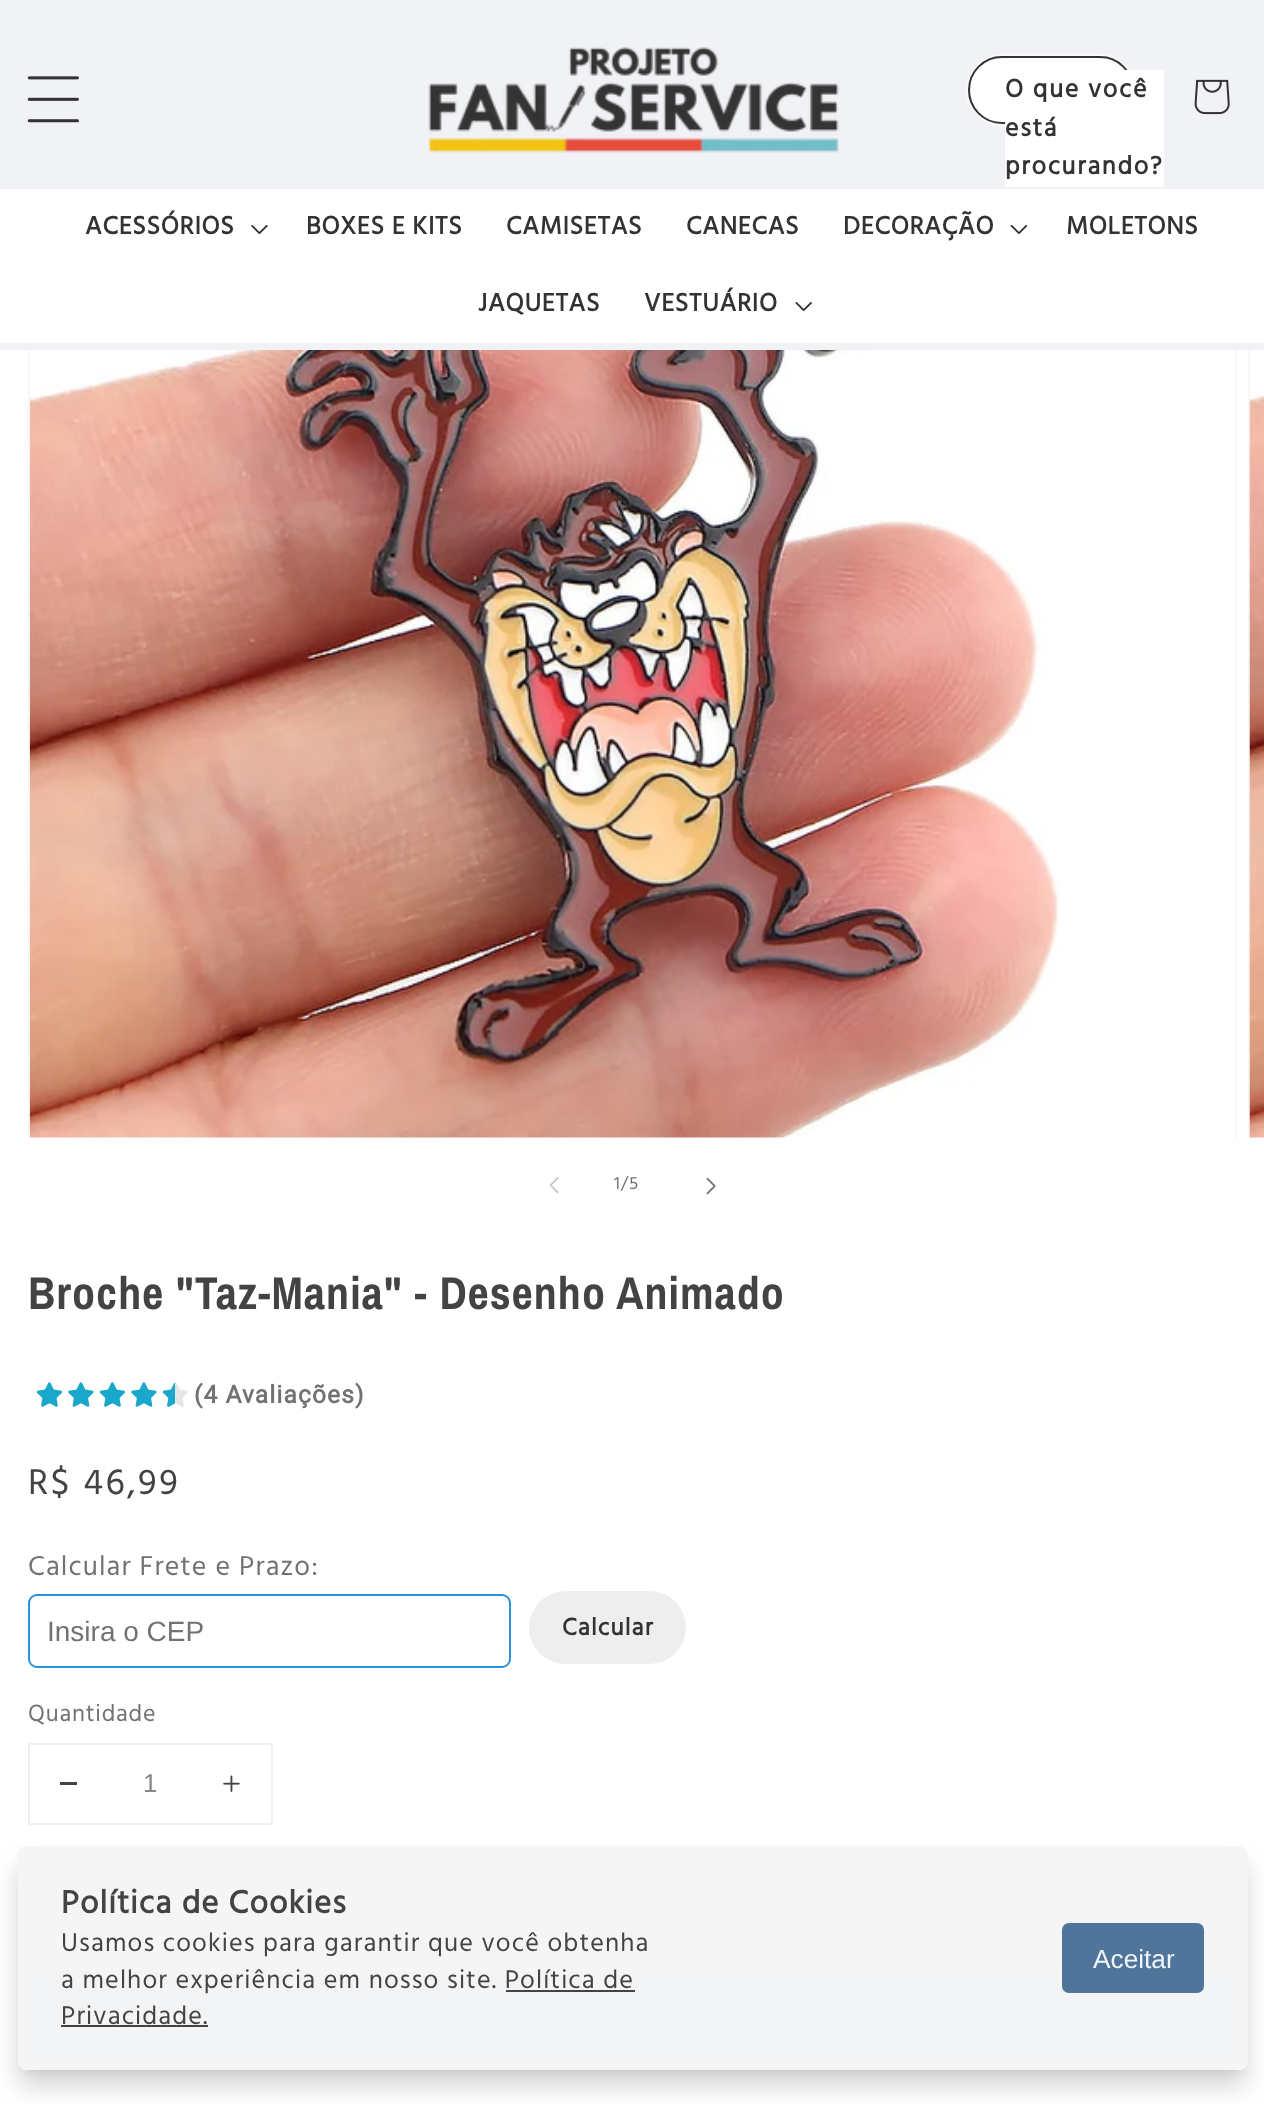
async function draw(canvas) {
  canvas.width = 1264;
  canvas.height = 2104;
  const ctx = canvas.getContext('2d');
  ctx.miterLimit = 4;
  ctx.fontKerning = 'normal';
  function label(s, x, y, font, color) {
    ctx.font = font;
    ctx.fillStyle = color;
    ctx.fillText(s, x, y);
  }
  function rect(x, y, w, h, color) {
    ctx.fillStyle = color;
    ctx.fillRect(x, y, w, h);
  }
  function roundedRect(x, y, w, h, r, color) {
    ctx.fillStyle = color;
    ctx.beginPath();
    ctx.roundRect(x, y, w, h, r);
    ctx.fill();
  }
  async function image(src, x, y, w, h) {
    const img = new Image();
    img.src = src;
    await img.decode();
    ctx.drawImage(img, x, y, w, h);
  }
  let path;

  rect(0, 0, 1264, 2104, '#fff');
  ctx.save();
  ctx.beginPath();
  ctx.rect(0, 350, 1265, 788);
  ctx.clip();
  ctx.strokeStyle = '#f7f7f7';
  ctx.lineWidth = 2;
  ctx.strokeRect(29, 139, 1207, 1209);
  ctx.strokeRect(1249, 139, 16, 1209);
  ctx.restore();
  rect(0, 0, 1264, 350, '#f1f2f6');
  await image('assets/img1.png', 27, 76, 52, 47);
  await image('assets/img2.png', 428, 47, 411, 106);
  ctx.beginPath();
  ctx.roundRect(967, 55, 168, 70, 35);
  ctx.strokeStyle = '#f9f9fb';
  ctx.lineWidth = 2;
  ctx.stroke();
  ctx.fillStyle = '#fff';
  ctx.beginPath();
  ctx.roundRect(969, 57, 164, 66, 33);
  ctx.fill();
  ctx.strokeStyle = '#333';
  ctx.stroke();
  rect(1005, 70, 159, 117, '#fff');
  ctx.letterSpacing = '1.75px';
  label('O que você', 1005, 97, 'bold 25.75px Hind Madurai', '#333');
  label('está', 1005, 136, 'bold 25.75px Hind Madurai', '#333');
  label('procurando?', 1005, 174, 'bold 25.75px Hind Madurai', '#333');
  await image('assets/img3.png', 1194, 79, 36, 36);
  rect(0, 189, 1264, 154, '#fff');
  ctx.letterSpacing = '0.75px';
  label('ACESSÓRIOS', 85, 234, 'bold 25.75px Hind Madurai', '#333');
  await image('assets/img4.png', 251, 225, 17, 9);
  label('BOXES E KITS', 306, 234, 'bold 25.75px Hind Madurai', '#333');
  label('CAMISETAS', 506, 234, 'bold 25.75px Hind Madurai', '#333');
  label('CANECAS', 686, 234, 'bold 25.75px Hind Madurai', '#333');
  label('DECORAÇÃO', 843, 234, 'bold 25.75px Hind Madurai', '#333');
  await image('assets/img5.png', 1010, 225, 18, 9);
  label('MOLETONS', 1066, 234, 'bold 25.75px Hind Madurai', '#333');
  label('JAQUETAS', 478, 311, 'bold 25.75px Hind Madurai', '#333');
  label('VESTUÁRIO', 644, 311, 'bold 25.75px Hind Madurai', '#333');
  await image('assets/img6.png', 795, 302, 17, 9);
  await image('assets/img7.png', 29, 350, 1030, 788);
  await image('assets/img8.png', 1249, 393, 15, 745);
  await image('assets/img9.png', 549, 1177, 10, 17);
  ctx.letterSpacing = '1px';
  label('1/5', 614, 1189, '18px Hind Madurai', '#727272');
  await image('assets/img10.png', 706, 1177, 10, 18);
  ctx.letterSpacing = '1.05px';
  label('Broche "Taz-Mania" - Desenho Animado', 28, 1309, 'bold 46px Archivo Narrow', '#434343');
  await image('assets/img11.png', 36, 1382, 26, 25);
  await image('assets/img12.png', 68, 1382, 26, 25);
  await image('assets/img11.png', 99, 1382, 26, 25);
  await image('assets/img12.png', 131, 1382, 26, 25);
  await image('assets/img13.png', 163, 1382, 25, 25);
  await image('assets/img14.png', 163, 1383, 12, 24);
  ctx.letterSpacing = '1.1px';
  label('(4 Avaliações)', 194, 1403, 'bold 24.5px Heebo', '#727272');
  ctx.letterSpacing = '2.5px';
  label('R$ 46,99', 28, 1494, '36.75px Hind Madurai', '#434343');
  ctx.letterSpacing = '1.1px';
  label('Calcular Frete e Prazo:', 28, 1575, '28px Hind Madurai', '#727272');
  ctx.beginPath();
  ctx.roundRect(29, 1595, 481, 72, 8);
  ctx.strokeStyle = '#2893d9';
  ctx.stroke();
  ctx.letterSpacing = '0px';
  label('Insira o CEP', 47, 1641, '28px Liberation Sans', '#727272');
  roundedRect(529, 1591, 157, 73, 36.5, '#eee');
  ctx.letterSpacing = '1.1px';
  label('Calcular', 562, 1635, 'bold 24.5px Hind Madurai', '#333');
  ctx.letterSpacing = '0.75px';
  label('Quantidade', 28, 1721, '24px Hind Madurai', '#727272');
  ctx.strokeStyle = '#f0f0f0';
  ctx.strokeRect(29, 1744, 243, 80);
  rect(60, 1782, 17, 3, '#434343');
  ctx.letterSpacing = '0px';
  label('1', 143, 1792, '25.75px Liberation Sans', '#878787');
  await image('assets/img15.png', 223, 1775, 17, 17);
  ctx.strokeStyle = '#2893d9';
  ctx.strokeRect(27, 1870, 1211, 84);
  ctx.strokeRect(27, 1972, 1211, 85);
  rect(28, 1973, 1209, 83, '#2893d9');
  ctx.save();
  path = new Path2D('M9 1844H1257V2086H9ZM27 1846H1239C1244 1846 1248 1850 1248 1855V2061C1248 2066 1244 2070 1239 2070H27C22 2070 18 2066 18 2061V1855C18 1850 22 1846 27 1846Z');
  ctx.clip(path, 'evenodd');
  ctx.fillStyle = '#a9a9a980';
  ctx.filter = 'blur(5px)';
  ctx.beginPath();
  ctx.roundRect(25, 1860, 1216, 210, 2);
  ctx.fill();
  ctx.filter = 'none';
  ctx.restore();
  ctx.save();
  path = new Path2D('M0 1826H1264V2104H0ZM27 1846H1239C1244 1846 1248 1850 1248 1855V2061C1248 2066 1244 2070 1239 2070H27C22 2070 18 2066 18 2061V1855C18 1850 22 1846 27 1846Z');
  ctx.clip(path, 'evenodd');
  ctx.fillStyle = '#a9a9a980';
  ctx.filter = 'blur(13px)';
  ctx.beginPath();
  ctx.roundRect(19, 1866, 1227, 220, 7);
  ctx.fill();
  ctx.filter = 'none';
  ctx.restore();
  roundedRect(18, 1846, 1230, 224, 9, '#f5f5f5fc');
  ctx.letterSpacing = '1.1px';
  label('Política de Cookies', 61, 1913, 'bold 32.75px Hind Madurai', '#434343');
  label('Usamos cookies para garantir que você obtenha', 61, 1951, '26.25px Hind Madurai', '#434343');
  label('a melhor experiência em nosso site. Política de', 61, 1988, '26.25px Hind Madurai', '#434343');
  label('Privacidade.', 61, 2024, '26.25px Hind Madurai', '#434343');
  rect(506, 1990, 129, 2, '#434343');
  rect(61, 2025, 147, 2, '#434343');
  roundedRect(1062, 1923, 142, 70, 7, '#4f759b');
  ctx.letterSpacing = '0px';
  label('Aceitar', 1093, 1968, '26.25px Liberation Sans', '#f1f5f9');
}

draw(document.querySelector('canvas'));
